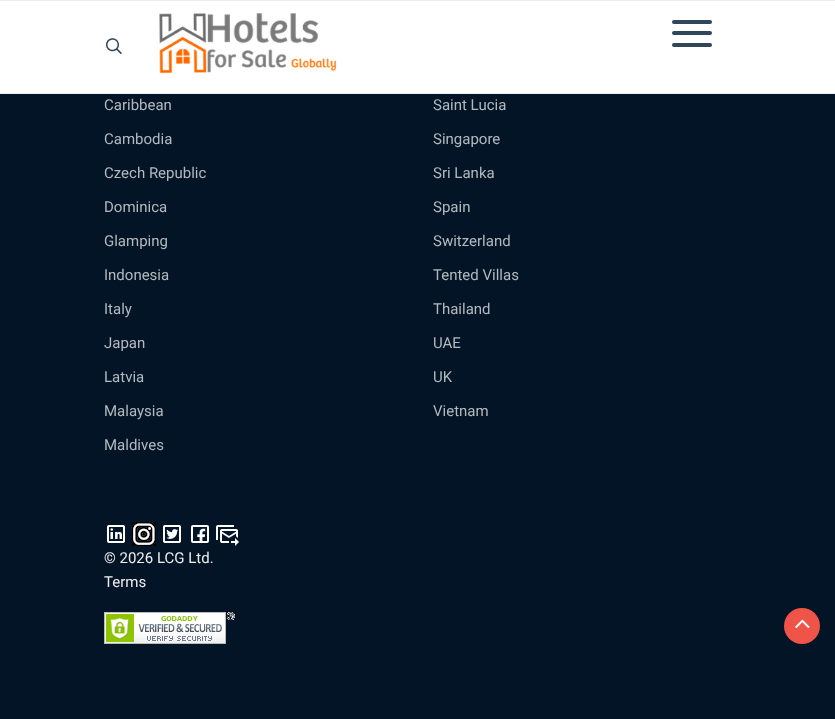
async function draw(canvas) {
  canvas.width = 835;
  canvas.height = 719;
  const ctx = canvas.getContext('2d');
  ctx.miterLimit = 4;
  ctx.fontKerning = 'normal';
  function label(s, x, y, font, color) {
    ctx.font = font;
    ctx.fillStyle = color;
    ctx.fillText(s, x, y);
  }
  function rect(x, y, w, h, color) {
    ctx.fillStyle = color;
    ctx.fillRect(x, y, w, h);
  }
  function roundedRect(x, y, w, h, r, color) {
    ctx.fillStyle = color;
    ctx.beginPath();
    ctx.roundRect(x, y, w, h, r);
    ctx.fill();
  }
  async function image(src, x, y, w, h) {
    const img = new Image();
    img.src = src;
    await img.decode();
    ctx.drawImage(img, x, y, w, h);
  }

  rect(0, 0, 835, 719, '#031427');
  rect(0, 1, 835, 92, '#fff');
  rect(0, 93, 835, 1, '#eaedf2');
  rect(0, 0, 835, 1, '#eaedf2');
  roundedRect(672, 20, 40, 4, 2, '#304659');
  roundedRect(672, 43, 40, 4, 2, '#304659');
  roundedRect(672, 31, 40, 4, 2, '#304659');
  await image('assets/img1.png', 106, 38, 16, 17);
  await image('assets/img2.png', 159, 13, 178, 61);
  label('Caribbean', 104, 110, '15px Roboto', '#b3b9be');
  label('Cambodia', 104, 144, '15px Roboto', '#b3b9be');
  label('Czech Republic', 104, 178, '15px Roboto', '#b3b9be');
  label('Dominica', 104, 212, '15px Roboto', '#b3b9be');
  label('Glamping', 104, 246, '15px Roboto', '#b3b9be');
  label('Indonesia', 104, 280, '15px Roboto', '#b3b9be');
  label('Italy', 104, 314, '15px Roboto', '#b3b9be');
  label('Japan', 104, 348, '15px Roboto', '#b3b9be');
  label('Latvia', 104, 382, '15px Roboto', '#b3b9be');
  label('Malaysia', 104, 416, '15px Roboto', '#b3b9be');
  label('Maldives', 104, 450, '15px Roboto', '#b3b9be');
  label('Saint Lucia', 433, 110, '15px Roboto', '#b3b9be');
  label('Singapore', 433, 144, '15px Roboto', '#b3b9be');
  label('Sri Lanka', 433, 178, '15px Roboto', '#b3b9be');
  label('Spain', 433, 212, '15px Roboto', '#b3b9be');
  label('Switzerland', 433, 246, '15px Roboto', '#b3b9be');
  label('Tented Villas', 433, 280, '15px Roboto', '#b3b9be');
  label('Thailand', 433, 314, '15px Roboto', '#b3b9be');
  label('UAE', 433, 348, '15px Roboto', '#b3b9be');
  label('UK', 433, 382, '15px Roboto', '#b3b9be');
  label('Vietnam', 433, 416, '15px Roboto', '#b3b9be');
  await image('assets/img3.png', 107, 525, 18, 18);
  await image('assets/img4.png', 132, 522, 24, 24);
  await image('assets/img5.png', 163, 525, 18, 18);
  await image('assets/img6.png', 191, 525, 18, 18);
  await image('assets/img7.png', 216, 525, 23, 21);
  label('© 2026 LCG Ltd.', 104, 563, '15px Roboto', '#eee');
  label('Terms', 104, 587, '15px Roboto', '#eee');
  await image('assets/img8.png', 104, 612, 131, 32);
  ctx.fillStyle = '#f05448';
  ctx.beginPath();
  ctx.arc(802, 626, 18, 0, 2 * Math.PI);
  ctx.fill();
  await image('assets/img9.png', 795, 619, 15, 9);
}

draw(document.querySelector('canvas'));
